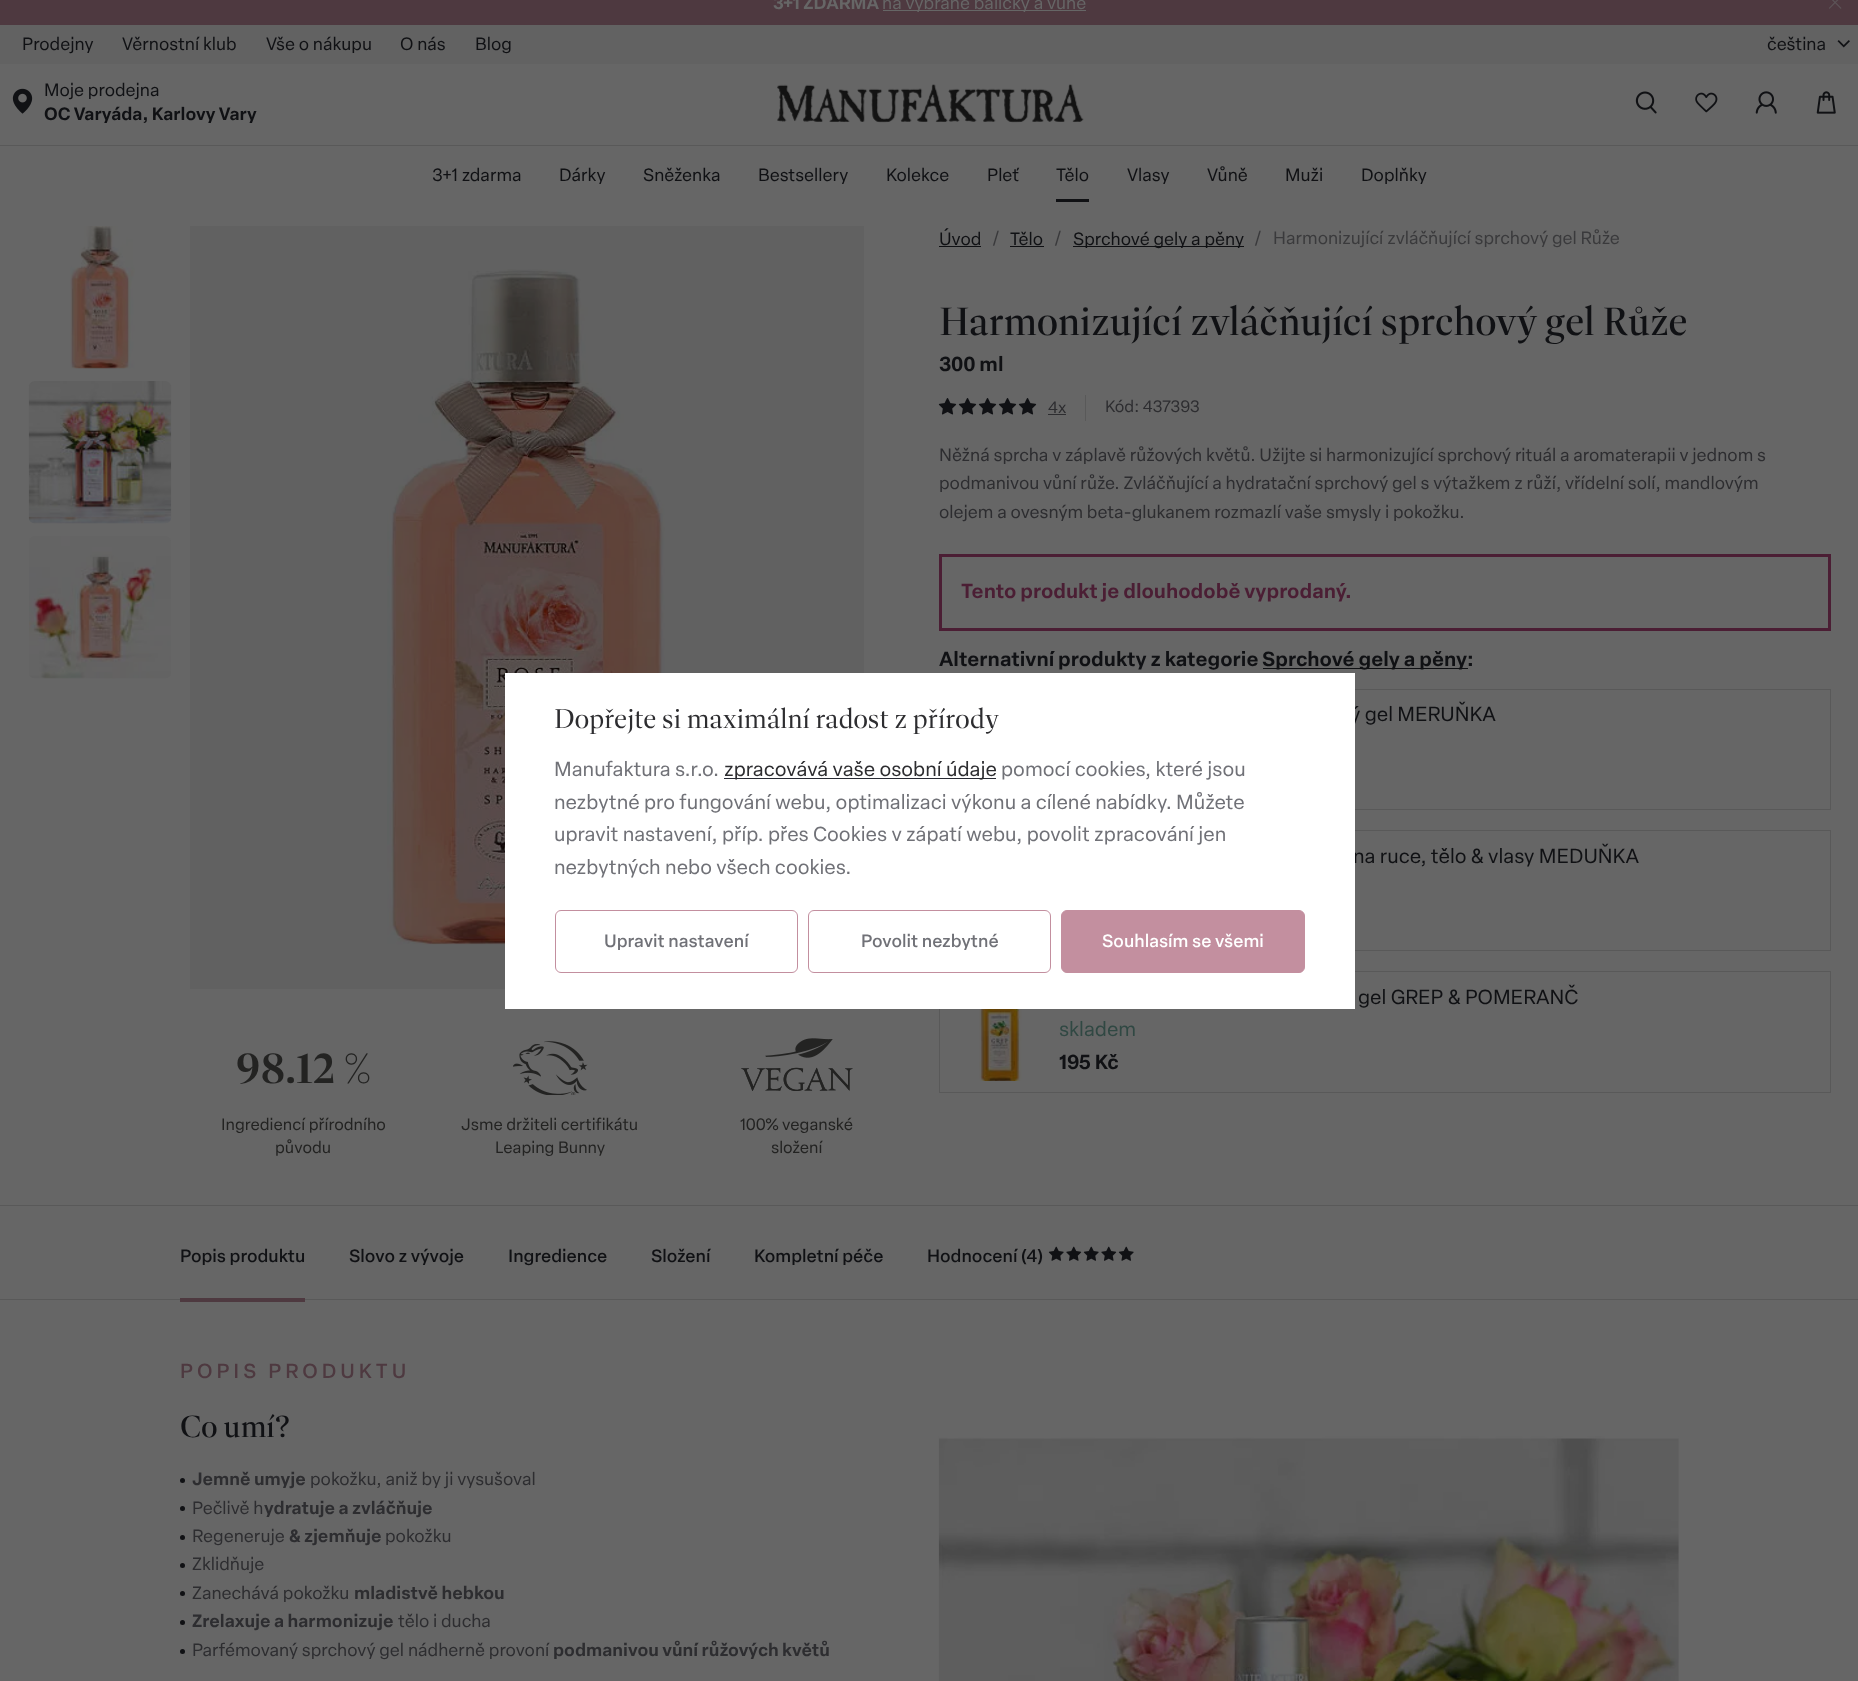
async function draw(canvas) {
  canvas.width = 1858;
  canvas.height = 1681;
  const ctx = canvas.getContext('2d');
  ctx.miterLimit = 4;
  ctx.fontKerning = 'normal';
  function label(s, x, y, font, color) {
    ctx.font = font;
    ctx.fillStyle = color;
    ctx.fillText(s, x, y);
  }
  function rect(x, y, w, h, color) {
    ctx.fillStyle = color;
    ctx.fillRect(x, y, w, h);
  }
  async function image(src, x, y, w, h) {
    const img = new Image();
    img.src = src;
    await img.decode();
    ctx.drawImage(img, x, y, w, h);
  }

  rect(0, 0, 1858, 1681, '#666');
  rect(0, 0, 1858, 25, '#4e3940');
  label('3+1 ZDARMA', 773, 9, '600 17.5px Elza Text', '#666');
  rect(883, 10, 203, 1, '#666');
  label('na vybrané balíčky a vůně', 882, 9, '17.5px Elza Text', '#666');
  await image('assets/img1.png', 1829, 0, 13, 9);
  rect(0, 25, 1858, 39, '#626262');
  label('Prodejny', 22, 50, '17.5px Elza Text', '#101114');
  label('Věrnostní klub', 122, 50, '17.5px Elza Text', '#101114');
  label('Vše o nákupu', 266, 50, '17.5px Elza Text', '#101114');
  label('O nás', 400, 50, '17.5px Elza Text', '#101114');
  label('Blog', 475, 50, '17.5px Elza Text', '#101114');
  label('čeština', 1767, 50, '17.5px Elza Text', '#101114');
  await image('assets/img2.png', 1837, 40, 13, 8);
  rect(0, 145, 1858, 1, '#595959');
  await image('assets/img3.png', 12, 88, 21, 26);
  label('Moje prodejna', 44, 96, '17.5px Elza Text', '#101114');
  label('OC Varyáda, Karlovy Vary', 44, 120, '600 17.5px Elza Text', '#101114');
  await image('assets/img4.png', 777, 84, 307, 39);
  await image('assets/img5.png', 1635, 91, 22, 23);
  await image('assets/img6.png', 1695, 92, 23, 21);
  await image('assets/img7.png', 1755, 91, 22, 23);
  await image('assets/img8.png', 1816, 91, 20, 23);
  label('3+1 zdarma', 432, 181, '17.5px Elza Text', '#101114');
  label('Dárky', 559, 181, '17.5px Elza Text', '#101114');
  label('Sněženka', 643, 181, '17.5px Elza Text', '#101114');
  label('Bestsellery', 758, 181, '17.5px Elza Text', '#101114');
  label('Kolekce', 886, 181, '17.5px Elza Text', '#101114');
  label('Pleť', 987, 181, '17.5px Elza Text', '#101114');
  label('Tělo', 1056, 181, '17.5px Elza Text', '#101114');
  rect(1056, 199, 33, 3, '#101114');
  label('Vlasy', 1127, 181, '17.5px Elza Text', '#101114');
  label('Vůně', 1207, 181, '17.5px Elza Text', '#101114');
  label('Muži', 1285, 181, '17.5px Elza Text', '#101114');
  label('Doplňky', 1361, 181, '17.5px Elza Text', '#101114');
  await image('assets/img9.png', 70, 226, 65, 143);
  await image('assets/img10.png', 28, 381, 144, 143);
  await image('assets/img11.png', 29, 536, 142, 143);
  await image('assets/img12.png', 387, 269, 278, 676);
  rect(190, 226, 674, 763, '#1011140d');
  label('Úvod', 939, 245, '17.5px Elza Text', '#101114');
  rect(939, 246, 42, 1, '#101114');
  label('/', 992, 244, '17.5px Elza Text', '#3a3a3c');
  label('Tělo', 1010, 245, '17.5px Elza Text', '#101114');
  rect(1010, 246, 34, 1, '#101114');
  label('/', 1054, 244, '17.5px Elza Text', '#3a3a3c');
  rect(1073, 246, 171, 1, '#101114');
  label('Sprchové gely a pěny', 1073, 245, '17.5px Elza Text', '#101114');
  label('/', 1254, 244, '17.5px Elza Text', '#3a3a3c');
  label('Harmonizující zvláčňující sprchový gel Růže', 1273, 244, '17.5px Elza Text', '#3a3a3c');
  label('Harmonizující zvláčňující sprchový gel Růže', 939, 335, '500 40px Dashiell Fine', '#101114');
  label('300 ml', 939, 371, '600 20px Elza Text', '#101114');
  await image('assets/img13.png', 938, 398, 19, 17);
  await image('assets/img13.png', 958, 398, 19, 17);
  await image('assets/img13.png', 978, 398, 19, 17);
  await image('assets/img13.png', 998, 398, 19, 17);
  await image('assets/img13.png', 1018, 398, 19, 17);
  label('4x', 1048, 413, '16.25px Elza Text', '#2d2d30');
  rect(1048, 414, 18, 1, '#2d2d30');
  rect(1085, 395, 1, 26, '#595959');
  label('Kód: 437393', 1105, 412, '16.25px Elza Text', '#2d2d30');
  label('Něžná sprcha v záplavě růžových květů. Užijte si harmonizující sprchový rituál a aromaterapii v jednom s', 939, 461, '17.5px Elza Text', '#2d2d30');
  label('podmanivou vůní růže. Zvláčňující a hydratační sprchový gel s výtažkem z růží, vřídelní solí, mandlovým', 939, 489, '17.5px Elza Text', '#2d2d30');
  label('olejem a ovesným beta-glukanem rozmazlí vaše smysly i pokožku.', 939, 518, '17.5px Elza Text', '#2d2d30');
  ctx.strokeStyle = '#4b1e34';
  ctx.lineWidth = 3;
  ctx.strokeRect(940.5, 555.5, 889, 74);
  label('Tento produkt je dlouhodobě vyprodaný.', 961, 598, '600 20px Elza Text', '#4b1e34');
  label('Alternativní produkty z kategorie', 939, 666, '600 20px Elza Text', '#101114');
  rect(1263, 668, 205, 1, '#101114');
  label('Sprchové gely a pěny:', 1262, 666, '600 20px Elza Text', '#101114');
  ctx.strokeStyle = '#595959';
  ctx.lineWidth = 1;
  ctx.strokeRect(939.5, 689.5, 891, 120);
  label('ý gel MERUŇKA', 1350, 721, '20px Elza Text', '#101114');
  ctx.strokeRect(939.5, 830.5, 891, 120);
  label('na ruce, tělo & vlasy MEDUŇKA', 1353, 863, '20px Elza Text', '#101114');
  ctx.strokeRect(939.5, 971.5, 891, 121);
  await image('assets/img14.png', 979, 1009, 43, 72);
  label('gel GREP & POMERANČ', 1358, 1004, '20px Elza Text', '#101114');
  label('skladem', 1059, 1036, '20px Elza Text', '#304843');
  label('195 Kč', 1059, 1069, '600 20px Elza Text', '#101114');
  label('98.12 %', 236, 1083, '600 45px Dashiell Fine', '#232322');
  label('Ingrediencí přírodního', 221, 1130, '16.25px Elza Text', '#232322');
  label('původu', 275, 1153, '16.25px Elza Text', '#232322');
  await image('assets/img15.png', 513, 1041, 75, 54);
  label('Jsme držiteli certifikátu', 461, 1130, '16.25px Elza Text', '#232322');
  label('Leaping Bunny', 495, 1153, '16.25px Elza Text', '#232322');
  await image('assets/img16.png', 741, 1038, 112, 53);
  label('100% veganské', 740, 1130, '16.25px Elza Text', '#232322');
  label('složení', 771, 1153, '16.25px Elza Text', '#232322');
  rect(0, 1205, 1858, 1, '#595959');
  rect(0, 1299, 1858, 1, '#595959');
  rect(180, 1298, 125, 4, '#4e3940');
  label('Popis produktu', 180, 1262, '500 17.5px Elza Text', '#101114');
  label('Slovo z vývoje', 349, 1262, '500 17.5px Elza Text', '#101114');
  label('Ingredience', 508, 1262, '500 17.5px Elza Text', '#101114');
  label('Složení', 651, 1262, '500 17.5px Elza Text', '#101114');
  label('Kompletní péče', 754, 1262, '500 17.5px Elza Text', '#101114');
  label('Hodnocení (4)', 927, 1262, '500 17.5px Elza Text', '#101114');
  await image('assets/img17.png', 1048, 1246, 16, 15);
  await image('assets/img18.png', 1066, 1246, 16, 15);
  await image('assets/img17.png', 1083, 1246, 16, 15);
  await image('assets/img18.png', 1101, 1246, 16, 15);
  await image('assets/img17.png', 1118, 1246, 16, 15);
  ctx.letterSpacing = '4px';
  label('POPIS PRODUKTU', 180, 1378, '500 20px Elza Text', '#4e3940');
  ctx.letterSpacing = '0px';
  label('Co umí?', 180, 1437, '500 31px Dashiell Fine', '#101114');
  ctx.beginPath();
  ctx.arc(182.5, 1480.5, 2.5, 0, 2 * Math.PI);
  ctx.fill();
  label('Jemně umyje', 192, 1485, '600 17.5px Elza Text', '#2d2d30');
  label('pokožku, aniž by ji vysušoval', 310, 1485, '17.5px Elza Text', '#2d2d30');
  ctx.fillStyle = '#101114';
  ctx.beginPath();
  ctx.arc(182.5, 1508.5, 2.5, 0, 2 * Math.PI);
  ctx.fill();
  label('Pečlivě h', 192, 1514, '17.5px Elza Text', '#2d2d30');
  label('ydratuje a zvláčňuje', 264, 1514, '600 17.5px Elza Text', '#2d2d30');
  ctx.fillStyle = '#101114';
  ctx.beginPath();
  ctx.arc(182.5, 1537.5, 2.5, 0, 2 * Math.PI);
  ctx.fill();
  label('Regeneruje', 192, 1542, '17.5px Elza Text', '#2d2d30');
  label('& zjemňuje', 289, 1542, '600 17.5px Elza Text', '#2d2d30');
  label('pokožku', 385, 1542, '17.5px Elza Text', '#2d2d30');
  ctx.fillStyle = '#101114';
  ctx.beginPath();
  ctx.arc(182.5, 1565.5, 2.5, 0, 2 * Math.PI);
  ctx.fill();
  label('Zklidňuje', 192, 1570, '17.5px Elza Text', '#2d2d30');
  ctx.fillStyle = '#101114';
  ctx.beginPath();
  ctx.arc(182.5, 1593.5, 2.5, 0, 2 * Math.PI);
  ctx.fill();
  label('Zanechává pokožku', 192, 1599, '17.5px Elza Text', '#2d2d30');
  label('mladistvě hebkou', 354, 1599, '600 17.5px Elza Text', '#2d2d30');
  ctx.fillStyle = '#101114';
  ctx.beginPath();
  ctx.arc(182.5, 1622.5, 2.5, 0, 2 * Math.PI);
  ctx.fill();
  label('Zrelaxuje a harmonizuje', 192, 1627, '600 17.5px Elza Text', '#2d2d30');
  label('tělo i ducha', 398, 1627, '17.5px Elza Text', '#2d2d30');
  ctx.fillStyle = '#101114';
  ctx.beginPath();
  ctx.arc(182.5, 1651.5, 2.5, 0, 2 * Math.PI);
  ctx.fill();
  label('Parfémovaný sprchový gel nádherně provoní', 192, 1656, '17.5px Elza Text', '#2d2d30');
  label('podmanivou vůní růžových květů', 553, 1656, '600 17.5px Elza Text', '#2d2d30');
  await image('assets/img19.png', 938, 1436, 741, 245);
  rect(505, 673, 850, 336, '#fff');
  label('Dopřejte si maximální radost z přírody', 554, 728, '27.5px Dashiell Fine', '#2d2d30');
  label('Manufaktura s.r.o.', 554, 776, '20px Elza Text', '#707177');
  rect(724, 778, 272, 1, '#282a33');
  label('zpracovává vaše osobní údaje', 724, 776, '20px Elza Text', '#2d2d30');
  label('pomocí cookies, které jsou', 1001, 776, '20px Elza Text', '#707177');
  label('nezbytné pro fungování webu, optimalizaci výkonu a cílené nabídky. Můžete', 554, 809, '20px Elza Text', '#707177');
  label('upravit nastavení, příp. přes Cookies v zápatí webu, povolit zpracování jen', 554, 841, '20px Elza Text', '#707177');
  label('nezbytných nebo všech cookies.', 554, 874, '20px Elza Text', '#707177');
  ctx.beginPath();
  ctx.roundRect(555.5, 910.5, 242, 62, 5.5);
  ctx.strokeStyle = '#c38f9f';
  ctx.stroke();
  label('Upravit nastavení', 604, 947, '500 17.5px Elza Text', '#707177');
  ctx.beginPath();
  ctx.roundRect(808.5, 910.5, 242, 62, 5.5);
  ctx.stroke();
  label('Povolit nezbytné', 861, 947, '500 17.5px Elza Text', '#707177');
  ctx.fillStyle = '#c38f9f';
  ctx.beginPath();
  ctx.roundRect(1061.5, 910.5, 243, 62, 5.5);
  ctx.fill();
  ctx.stroke();
  label('Souhlasím se všemi', 1102, 947, '500 17.5px Elza Text', '#fff');
}

draw(document.querySelector('canvas'));
